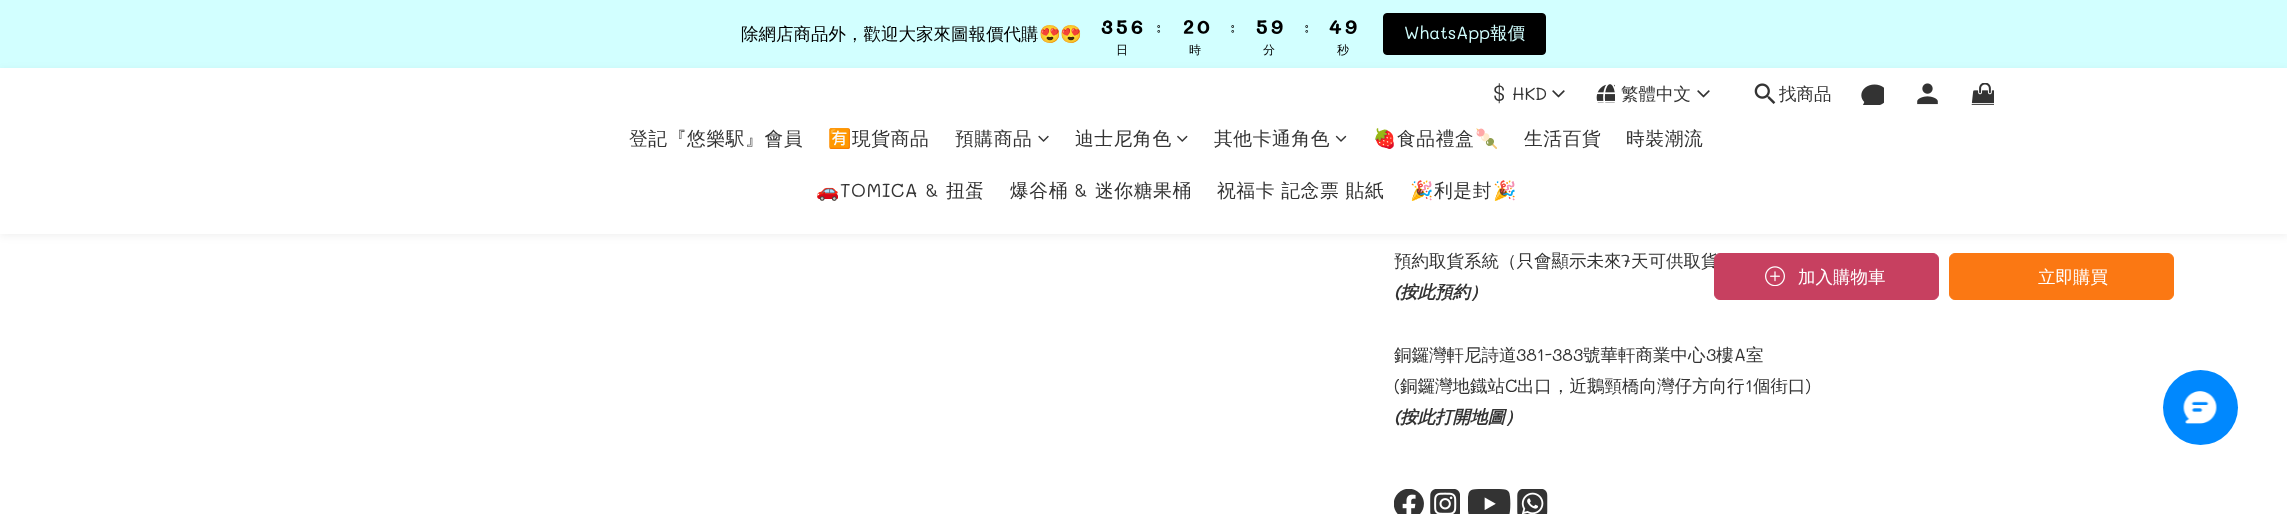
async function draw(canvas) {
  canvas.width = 2287;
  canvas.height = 514;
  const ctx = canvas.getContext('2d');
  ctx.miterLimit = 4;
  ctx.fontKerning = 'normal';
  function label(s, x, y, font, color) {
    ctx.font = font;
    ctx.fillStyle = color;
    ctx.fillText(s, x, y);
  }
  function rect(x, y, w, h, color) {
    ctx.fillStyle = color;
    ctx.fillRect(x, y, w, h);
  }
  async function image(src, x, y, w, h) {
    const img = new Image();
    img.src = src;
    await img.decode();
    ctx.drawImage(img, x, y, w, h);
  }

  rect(0, 0, 2287, 514, '#fff');
  rect(0, 0, 2287, 68, '#d2ffff');
  label('除網店商品外，歡迎大家來圖報價代購', 741, 40, '500 17.5px WenQuanYi Zen Hei', '#000');
  label('😍😍', 1039, 40, '17.5px Noto Color Emoji', '#000');
  label('3', 1101, 34, 'bold 20px Mali', '#000');
  label('5', 1116, 34, 'bold 20px Mali', '#000');
  label('6', 1131, 34, 'bold 20px Mali', '#000');
  label('日', 1116, 54, '500 12px WenQuanYi Zen Hei', '#000');
  label(':', 1156, 33, '17.5px Mali', '#000');
  label('2', 1183, 34, 'bold 20px Mali', '#000');
  label('0', 1197, 34, 'bold 20px Mali', '#000');
  label('時', 1189, 54, '500 12px WenQuanYi Zen Hei', '#000');
  label(':', 1230, 33, '17.5px Mali', '#000');
  label('5', 1256, 34, 'bold 20px Mali', '#000');
  label('9', 1271, 34, 'bold 20px Mali', '#000');
  label('分', 1263, 54, '500 12px WenQuanYi Zen Hei', '#000');
  label(':', 1304, 33, '17.5px Mali', '#000');
  label('4', 1329, 34, 'bold 20px Mali', '#000');
  label('9', 1345, 34, 'bold 20px Mali', '#000');
  label('秒', 1337, 54, '500 12px WenQuanYi Zen Hei', '#000');
  ctx.beginPath();
  ctx.roundRect(1383.5, 13.5, 162, 41, 3.5);
  ctx.fill();
  ctx.strokeStyle = '#000';
  ctx.stroke();
  label('WhatsApp', 1404, 39, '17.5px Mali', '#d2ffff');
  label('報價', 1490, 39, '500 17.5px WenQuanYi Zen Hei', '#d2ffff');
  ctx.fillStyle = '#0000000f';
  ctx.filter = 'blur(4px)';
  ctx.beginPath();
  ctx.rect(0, 70, 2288, 166);
  ctx.fill();
  ctx.filter = 'none';
  rect(0, 68, 2287, 166, '#fff');
  ctx.letterSpacing = '1px';
  label('$', 1493, 101, '22px Mali', '#333');
  ctx.letterSpacing = '0px';
  label('HKD', 1512, 100, '17.5px Mali', '#333');
  await image('assets/img1.png', 1552, 90, 13, 8);
  await image('assets/img2.png', 1596, 84, 19, 19);
  label('繁體中文', 1621, 100, '500 17.5px WenQuanYi Zen Hei', '#333');
  await image('assets/img1.png', 1697, 90, 13, 8);
  await image('assets/img3.png', 1754, 83, 22, 21);
  label('找商品', 1779, 100, '500 17.5px WenQuanYi Zen Hei', '#333');
  await image('assets/img4.png', 1861, 84, 23, 21);
  await image('assets/img5.png', 1917, 83, 21, 22);
  await image('assets/img6.png', 1971, 83, 23, 22);
  ctx.letterSpacing = '0.6px';
  label('登記『悠樂駅』會員', 629, 145, '500 18.75px WenQuanYi Zen Hei', '#333');
  label('🈶', 828, 145, '18.75px Noto Color Emoji', '#333');
  label('現貨商品', 852, 145, '500 18.75px WenQuanYi Zen Hei', '#333');
  label('預購商品', 955, 145, '500 18.75px WenQuanYi Zen Hei', '#333');
  await image('assets/img7.png', 1038, 135, 11, 7);
  label('迪士尼角色', 1075, 145, '500 18.75px WenQuanYi Zen Hei', '#333');
  await image('assets/img8.png', 1177, 135, 11, 7);
  label('其他卡通角色', 1214, 145, '500 18.75px WenQuanYi Zen Hei', '#333');
  await image('assets/img9.png', 1335, 135, 12, 7);
  label('🍓', 1373, 145, '18.75px Noto Color Emoji', '#333');
  label('食品禮盒', 1397, 145, '500 18.75px WenQuanYi Zen Hei', '#333');
  label('🍡', 1475, 145, '18.75px Noto Color Emoji', '#333');
  label('生活百貨', 1524, 145, '500 18.75px WenQuanYi Zen Hei', '#333');
  label('時裝潮流', 1626, 145, '500 18.75px WenQuanYi Zen Hei', '#333');
  label('🚗', 816, 197, '18.75px Noto Color Emoji', '#333');
  label('TOMICA &', 840, 197, '18.75px Mali', '#333');
  label('扭蛋', 946, 197, '500 18.75px WenQuanYi Zen Hei', '#333');
  label('爆谷桶', 1010, 197, '500 18.75px WenQuanYi Zen Hei', '#333');
  label('&', 1074, 197, '18.75px Mali', '#333');
  label('迷你糖果桶', 1095, 197, '500 18.75px WenQuanYi Zen Hei', '#333');
  label('祝福卡 記念票 貼紙', 1217, 197, '500 18.75px WenQuanYi Zen Hei', '#333');
  label('🎉', 1410, 197, '18.75px Noto Color Emoji', '#333');
  label('利是封', 1434, 197, '500 18.75px WenQuanYi Zen Hei', '#333');
  label('🎉', 1493, 197, '18.75px Noto Color Emoji', '#333');
  ctx.letterSpacing = '0px';
  label('預約取貨系統（只會顯示未來', 1394, 267, '500 17.5px WenQuanYi Zen Hei', '#333');
  label('7', 1621, 267, '17.5px Mali', '#333');
  label('天可供取貨', 1631, 267, '500 17.5px WenQuanYi Zen Hei', '#333');
  label('(', 1394, 298, 'italic bold 17.5px Mali', '#333');
  label('按此預約）', 1400, 298, 'italic bold 17.5px WenQuanYi Zen Hei', '#333');
  label('銅鑼灣軒尼詩道', 1394, 361, '500 17.5px WenQuanYi Zen Hei', '#333');
  label('381-383', 1516, 361, '17.5px Mali', '#333');
  label('號華軒商業中心', 1583, 361, '500 17.5px WenQuanYi Zen Hei', '#333');
  label('3', 1706, 361, '17.5px Mali', '#333');
  label('樓', 1716, 361, '500 17.5px WenQuanYi Zen Hei', '#333');
  label('A', 1734, 361, '17.5px Mali', '#333');
  label('室', 1746, 361, '500 17.5px WenQuanYi Zen Hei', '#333');
  label('(', 1394, 392, '17.5px Mali', '#333');
  label('銅鑼灣地鐡站', 1400, 392, '500 17.5px WenQuanYi Zen Hei', '#333');
  label('C', 1505, 392, '17.5px Mali', '#333');
  label('出口，近鵝頸橋向灣仔方向行', 1517, 392, '500 17.5px WenQuanYi Zen Hei', '#333');
  label('1', 1745, 392, '17.5px Mali', '#333');
  label('個街口', 1753, 392, '500 17.5px WenQuanYi Zen Hei', '#333');
  label(')', 1805, 392, '17.5px Mali', '#333');
  label('(', 1394, 423, 'italic bold 17.5px Mali', '#333');
  label('按此打開地圖）', 1400, 423, 'italic bold 17.5px WenQuanYi Zen Hei', '#333');
  await image('assets/img10.png', 1394, 489, 30, 25);
  await image('assets/img11.png', 1430, 489, 30, 25);
  await image('assets/img12.png', 1468, 489, 43, 25);
  await image('assets/img13.png', 1517, 489, 31, 25);
  ctx.fillStyle = '#c74060';
  ctx.beginPath();
  ctx.roundRect(1714.5, 253.5, 224, 46, 5.5);
  ctx.fill();
  ctx.strokeStyle = '#c74060';
  ctx.stroke();
  await image('assets/img14.png', 1765, 266, 20, 20);
  label('加入購物車', 1798, 283, '500 17.5px WenQuanYi Zen Hei', '#fff');
  ctx.fillStyle = '#fb7813';
  ctx.beginPath();
  ctx.roundRect(1949.5, 253.5, 224, 46, 5.5);
  ctx.fill();
  ctx.strokeStyle = '#fb7813';
  ctx.stroke();
  label('立即購買', 2038, 283, '500 17.5px WenQuanYi Zen Hei', '#fff');
  ctx.fillStyle = '#0088fe';
  ctx.beginPath();
  ctx.arc(2200.5, 407.5, 37.5, 0, 2 * Math.PI);
  ctx.fill();
  await image('assets/img15.png', 2183, 391, 34, 33);
}

draw(document.querySelector('canvas'));
